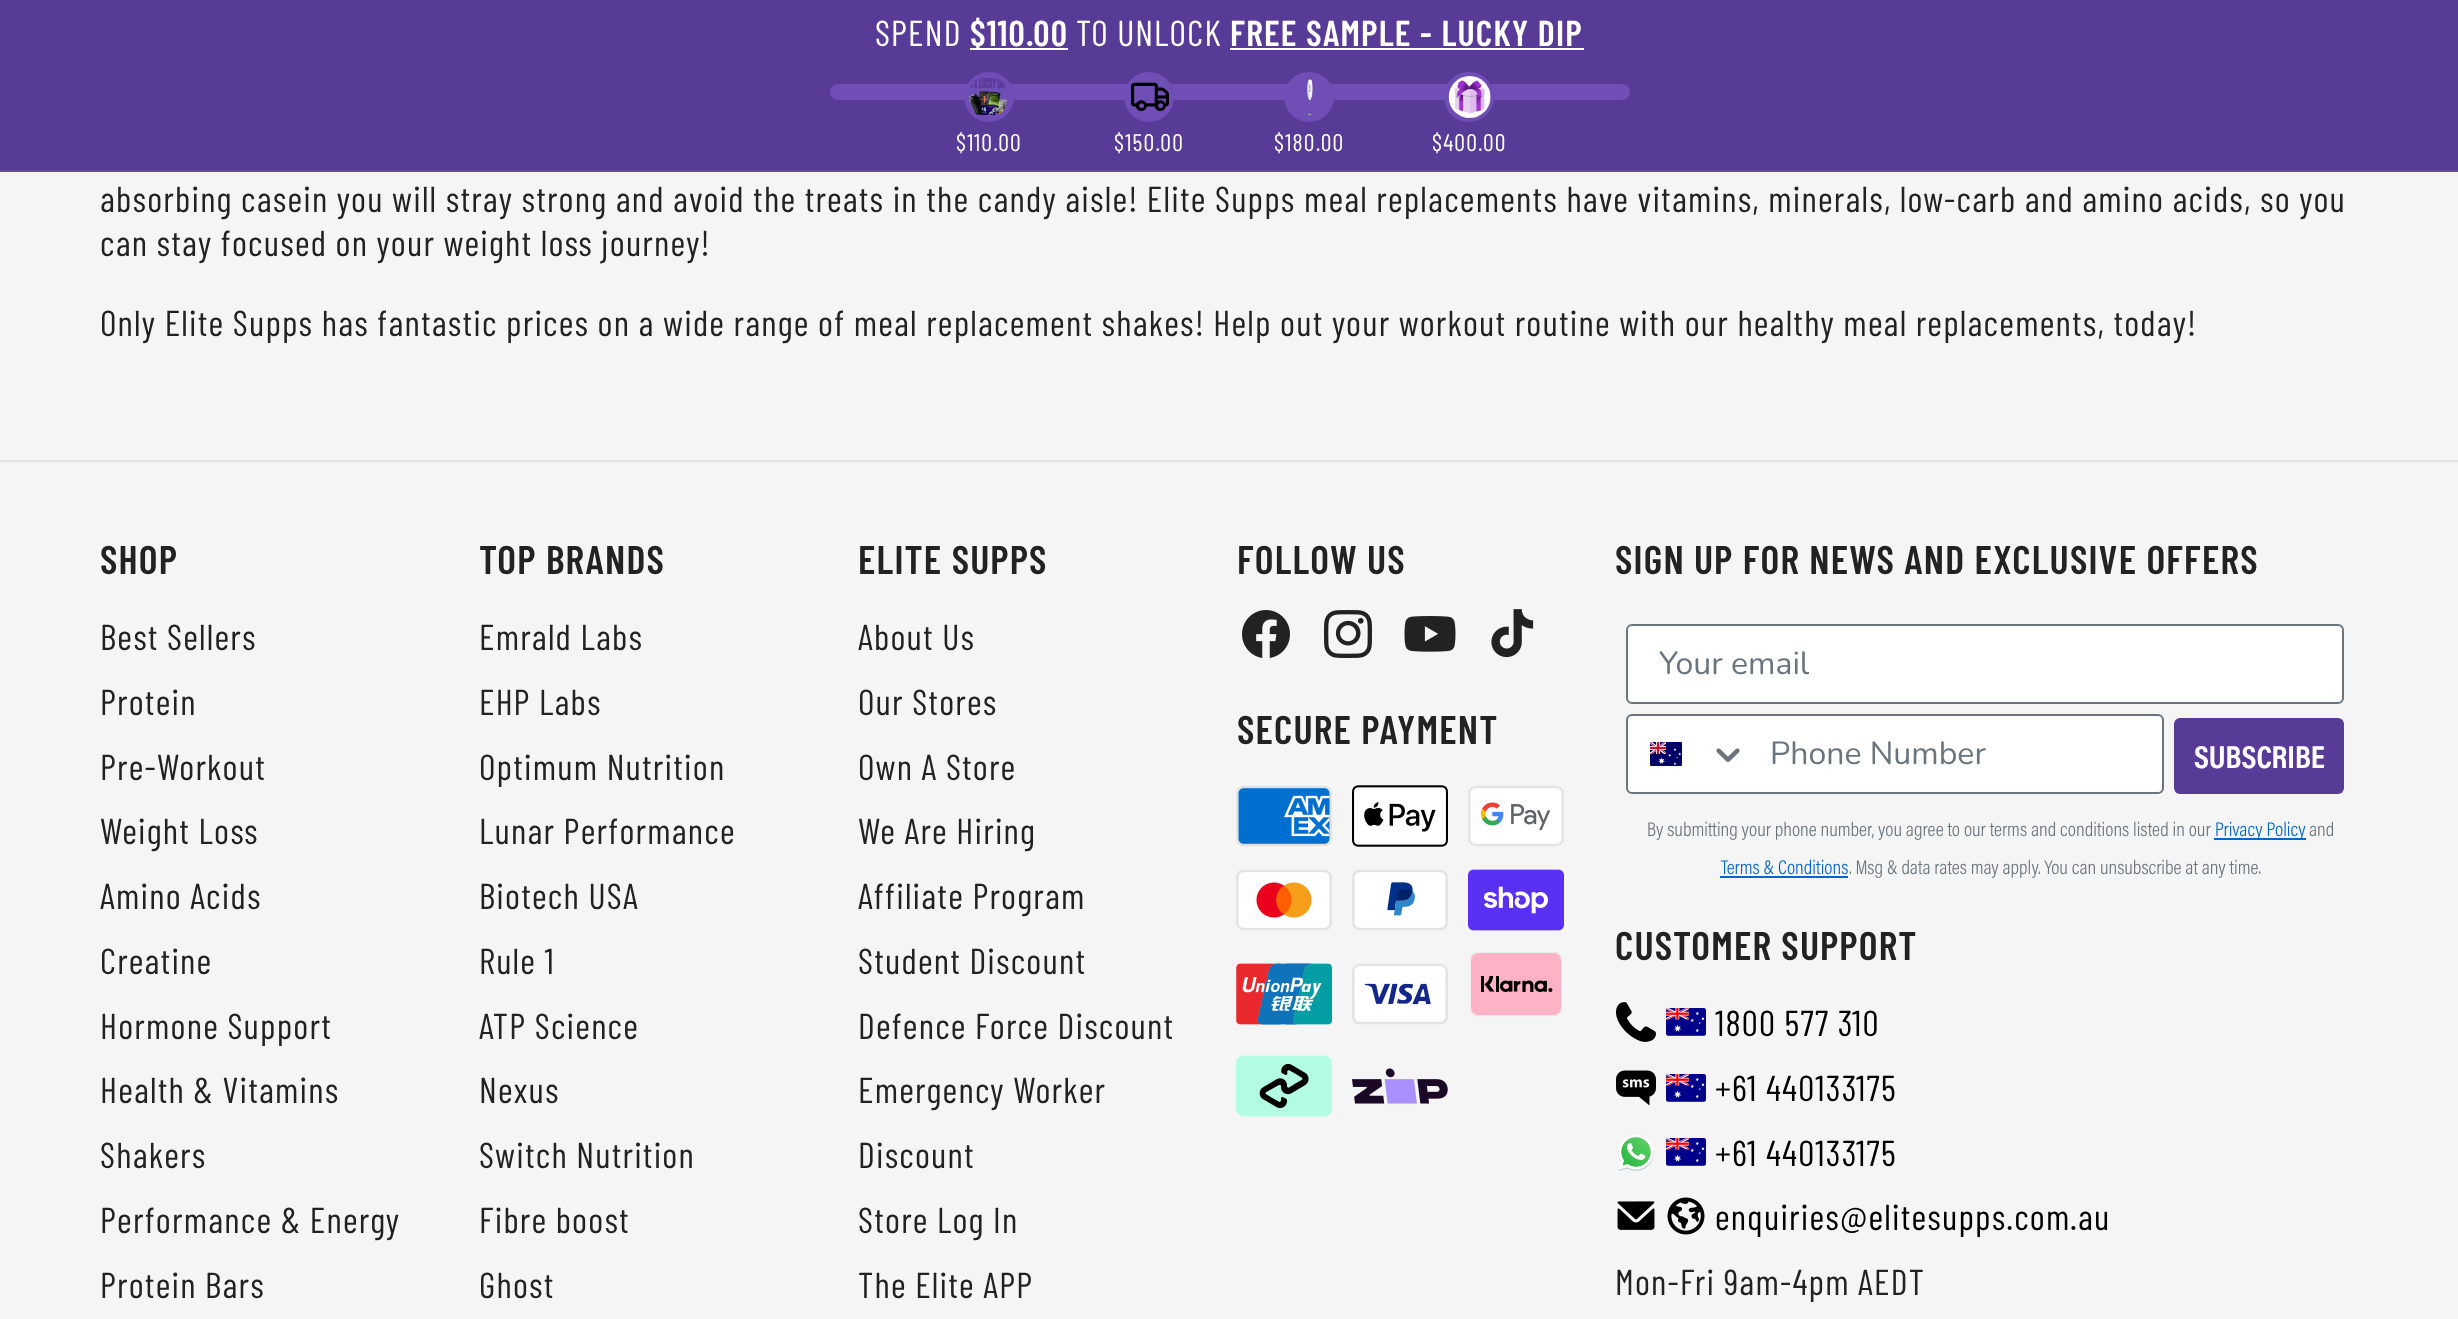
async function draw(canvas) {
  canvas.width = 2458;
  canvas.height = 1319;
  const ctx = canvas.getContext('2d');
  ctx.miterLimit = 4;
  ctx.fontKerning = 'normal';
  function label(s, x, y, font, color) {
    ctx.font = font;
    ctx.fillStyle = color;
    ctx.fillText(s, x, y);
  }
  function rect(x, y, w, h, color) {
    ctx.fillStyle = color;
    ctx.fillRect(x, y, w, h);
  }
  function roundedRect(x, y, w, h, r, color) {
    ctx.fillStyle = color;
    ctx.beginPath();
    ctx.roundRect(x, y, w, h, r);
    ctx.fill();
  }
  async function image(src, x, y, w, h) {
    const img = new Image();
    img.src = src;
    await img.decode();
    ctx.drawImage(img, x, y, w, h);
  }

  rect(0, 0, 2458, 1319, '#f5f5f5');
  rect(0, 0, 2458, 170, '#583a97');
  rect(0, 170, 2458, 2, '#654a9f');
  ctx.letterSpacing = '1.2px';
  label('SPEND', 875, 46, '36px Barlow Condensed', '#fff');
  rect(970, 48, 98, 2, '#fff');
  label('$110.00', 970, 46, '600 36px Barlow Condensed', '#fff');
  label('TO UNLOCK', 1076, 46, '36px Barlow Condensed', '#fff');
  label('FREE SAMPLE - LUCKY DIP', 1230, 46, '600 36px Barlow Condensed', '#fff');
  rect(1230, 48, 354, 2, '#fff');
  roundedRect(830, 84, 800, 16, 8, '#6f4eb6');
  ctx.beginPath();
  ctx.arc(989, 97, 24, 0, 2 * Math.PI);
  ctx.fill();
  ctx.strokeStyle = '#6f4eb6';
  ctx.lineWidth = 2;
  ctx.stroke();
  await image('assets/img1.png', 969, 78, 38, 38);
  label('$110.00', 956, 151, '24px Barlow Condensed', '#fff');
  ctx.fillStyle = '#6f4eb6';
  ctx.beginPath();
  ctx.arc(1149, 97, 24, 0, 2 * Math.PI);
  ctx.fill();
  ctx.stroke();
  await image('assets/img2.png', 1130, 82, 39, 29);
  label('$150.00', 1114, 151, '24px Barlow Condensed', '#fff');
  ctx.fillStyle = '#6f4eb6';
  ctx.beginPath();
  ctx.arc(1309, 97, 24, 0, 2 * Math.PI);
  ctx.fill();
  ctx.stroke();
  await image('assets/img3.png', 1307, 79, 6, 37);
  label('$180.00', 1274, 151, '24px Barlow Condensed', '#fff');
  ctx.fillStyle = '#6f4eb6';
  ctx.beginPath();
  ctx.arc(1469, 97, 24, 0, 2 * Math.PI);
  ctx.fill();
  ctx.stroke();
  await image('assets/img4.png', 1448, 76, 43, 42);
  label('$400.00', 1432, 151, '24px Barlow Condensed', '#fff');
  label('absorbing casein you will stray strong and avoid the treats in the candy aisle! Elite Supps meal replacements have vitamins, minerals, low-carb and amino acids, so you', 100, 212, '36px Barlow Condensed', '#232222');
  label('can stay focused on your weight loss journey!', 100, 256, '36px Barlow Condensed', '#232222');
  label('Only Elite Supps has fantastic prices on a wide range of meal replacement shakes! Help out your workout routine with our healthy meal replacements, today!', 100, 336, '36px Barlow Condensed', '#232222');
  rect(0, 460, 2458, 2, '#e4e4e4');
  label('SHOP', 100, 574, '600 40px Barlow Condensed', '#232222');
  label('Best Sellers', 100, 650, '36px Barlow Condensed', '#232222');
  label('Protein', 100, 715, '36px Barlow Condensed', '#232222');
  label('Pre-Workout', 100, 780, '36px Barlow Condensed', '#232222');
  label('Weight Loss', 100, 844, '36px Barlow Condensed', '#232222');
  label('Amino Acids', 100, 909, '36px Barlow Condensed', '#232222');
  label('Creatine', 100, 974, '36px Barlow Condensed', '#232222');
  label('Hormone Support', 100, 1039, '36px Barlow Condensed', '#232222');
  label('Health & Vitamins', 100, 1103, '36px Barlow Condensed', '#232222');
  label('Shakers', 100, 1168, '36px Barlow Condensed', '#232222');
  label('Performance & Energy', 100, 1233, '36px Barlow Condensed', '#232222');
  label('Protein Bars', 100, 1298, '36px Barlow Condensed', '#232222');
  label('TOP BRANDS', 479, 574, '600 40px Barlow Condensed', '#232222');
  label('Emrald Labs', 479, 650, '36px Barlow Condensed', '#232222');
  label('EHP Labs', 479, 715, '36px Barlow Condensed', '#232222');
  label('Optimum Nutrition', 479, 780, '36px Barlow Condensed', '#232222');
  label('Lunar Performance', 479, 844, '36px Barlow Condensed', '#232222');
  label('Biotech USA', 479, 909, '36px Barlow Condensed', '#232222');
  label('Rule 1', 479, 974, '36px Barlow Condensed', '#232222');
  label('ATP Science', 479, 1039, '36px Barlow Condensed', '#232222');
  label('Nexus', 479, 1103, '36px Barlow Condensed', '#232222');
  label('Switch Nutrition', 479, 1168, '36px Barlow Condensed', '#232222');
  label('Fibre boost', 479, 1233, '36px Barlow Condensed', '#232222');
  label('Ghost', 479, 1298, '36px Barlow Condensed', '#232222');
  label('ELITE SUPPS', 858, 574, '600 40px Barlow Condensed', '#232222');
  label('About Us', 858, 650, '36px Barlow Condensed', '#232222');
  label('Our Stores', 858, 715, '36px Barlow Condensed', '#232222');
  label('Own A Store', 858, 780, '36px Barlow Condensed', '#232222');
  label('We Are Hiring', 858, 844, '36px Barlow Condensed', '#232222');
  label('Affiliate Program', 858, 909, '36px Barlow Condensed', '#232222');
  label('Student Discount', 858, 974, '36px Barlow Condensed', '#232222');
  label('Defence Force Discount', 858, 1039, '36px Barlow Condensed', '#232222');
  label('Emergency Worker', 858, 1103, '36px Barlow Condensed', '#232222');
  label('Discount', 858, 1168, '36px Barlow Condensed', '#232222');
  label('Store Log In', 858, 1233, '36px Barlow Condensed', '#232222');
  label('The Elite APP', 858, 1298, '36px Barlow Condensed', '#232222');
  label('FOLLOW US', 1237, 574, '600 40px Barlow Condensed', '#232222');
  await image('assets/img5.png', 1242, 610, 48, 48);
  await image('assets/img6.png', 1324, 610, 48, 48);
  await image('assets/img7.png', 1404, 616, 52, 36);
  await image('assets/img8.png', 1491, 609, 43, 49);
  label('SECURE PAYMENT', 1237, 744, '600 40px Barlow Condensed', '#232222');
  await image('assets/img9.png', 1236, 785, 96, 62);
  await image('assets/img10.png', 1352, 785, 96, 62);
  await image('assets/img11.png', 1468, 785, 96, 62);
  await image('assets/img12.png', 1236, 869, 96, 62);
  await image('assets/img13.png', 1352, 869, 96, 62);
  await image('assets/img14.png', 1468, 869, 96, 62);
  await image('assets/img15.png', 1236, 963, 96, 62);
  await image('assets/img16.png', 1352, 963, 96, 62);
  await image('assets/img17.png', 1470, 952, 92, 64);
  await image('assets/img18.png', 1236, 1055, 96, 62);
  await image('assets/img19.png', 1352, 1068, 96, 36);
  label('SIGN UP FOR NEWS AND EXCLUSIVE OFFERS', 1615, 574, '600 40px Barlow Condensed', '#232222');
  ctx.fillStyle = '#fff';
  ctx.beginPath();
  ctx.roundRect(1627, 625, 716, 78, 5);
  ctx.fill();
  ctx.strokeStyle = '#6a747d';
  ctx.stroke();
  ctx.letterSpacing = '0px';
  label('Your email', 1659, 674, '32px Nunito', '#6a747d');
  ctx.fillStyle = '#fff';
  ctx.beginPath();
  ctx.roundRect(1627, 715, 536, 78, 5);
  ctx.fill();
  ctx.stroke();
  await image('assets/img20.png', 1650, 742, 32, 24);
  await image('assets/img21.png', 1716, 748, 24, 14);
  label('Phone Number', 1770, 764, '32px Nunito', '#6a747d');
  roundedRect(2174, 718, 170, 76, 6, '#583a97');
  label('SUBSCRIBE', 2194, 768, 'bold 32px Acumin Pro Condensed', '#fff');
  label('By submitting your phone number, you agree to our terms and conditions listed in our', 1647, 836, '300 20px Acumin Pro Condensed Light', '#6a747d');
  rect(2214, 838, 92, 2, '#06c');
  label('Privacy Policy', 2215, 836, '300 20px Acumin Pro Condensed Light', '#06c');
  label('and', 2309, 836, '300 20px Acumin Pro Condensed Light', '#6a747d');
  label('Terms & Conditions', 1721, 874, '300 20px Acumin Pro Condensed Light', '#06c');
  label('. Msg & data rates may apply. You can unsubscribe at any time.', 1849, 874, '300 20px Acumin Pro Condensed Light', '#6a747d');
  rect(1720, 876, 128, 2, '#06c');
  ctx.letterSpacing = '1.2px';
  label('CUSTOMER SUPPORT', 1615, 960, '600 40px Barlow Condensed', '#232222');
  await image('assets/img22.png', 1616, 1002, 40, 40);
  await image('assets/img23.png', 1666, 1008, 40, 28);
  label('1800 577 310', 1715, 1036, '36px Barlow Condensed', '#000');
  await image('assets/img24.png', 1616, 1070, 40, 36);
  await image('assets/img23.png', 1666, 1074, 40, 28);
  label('+61 440133175', 1715, 1101, '36px Barlow Condensed', '#000');
  await image('assets/img25.png', 1618, 1134, 36, 37);
  await image('assets/img23.png', 1666, 1138, 40, 28);
  label('+61 440133175', 1715, 1166, '36px Barlow Condensed', '#000');
  await image('assets/img26.png', 1617, 1201, 38, 29);
  await image('assets/img27.png', 1667, 1197, 38, 38);
  label('enquiries@elitesupps.com.au', 1715, 1230, '36px Barlow Condensed', '#000');
  label('Mon-Fri 9am-4pm AEDT', 1615, 1295, '36px Barlow Condensed', '#232222');
}

draw(document.querySelector('canvas'));
